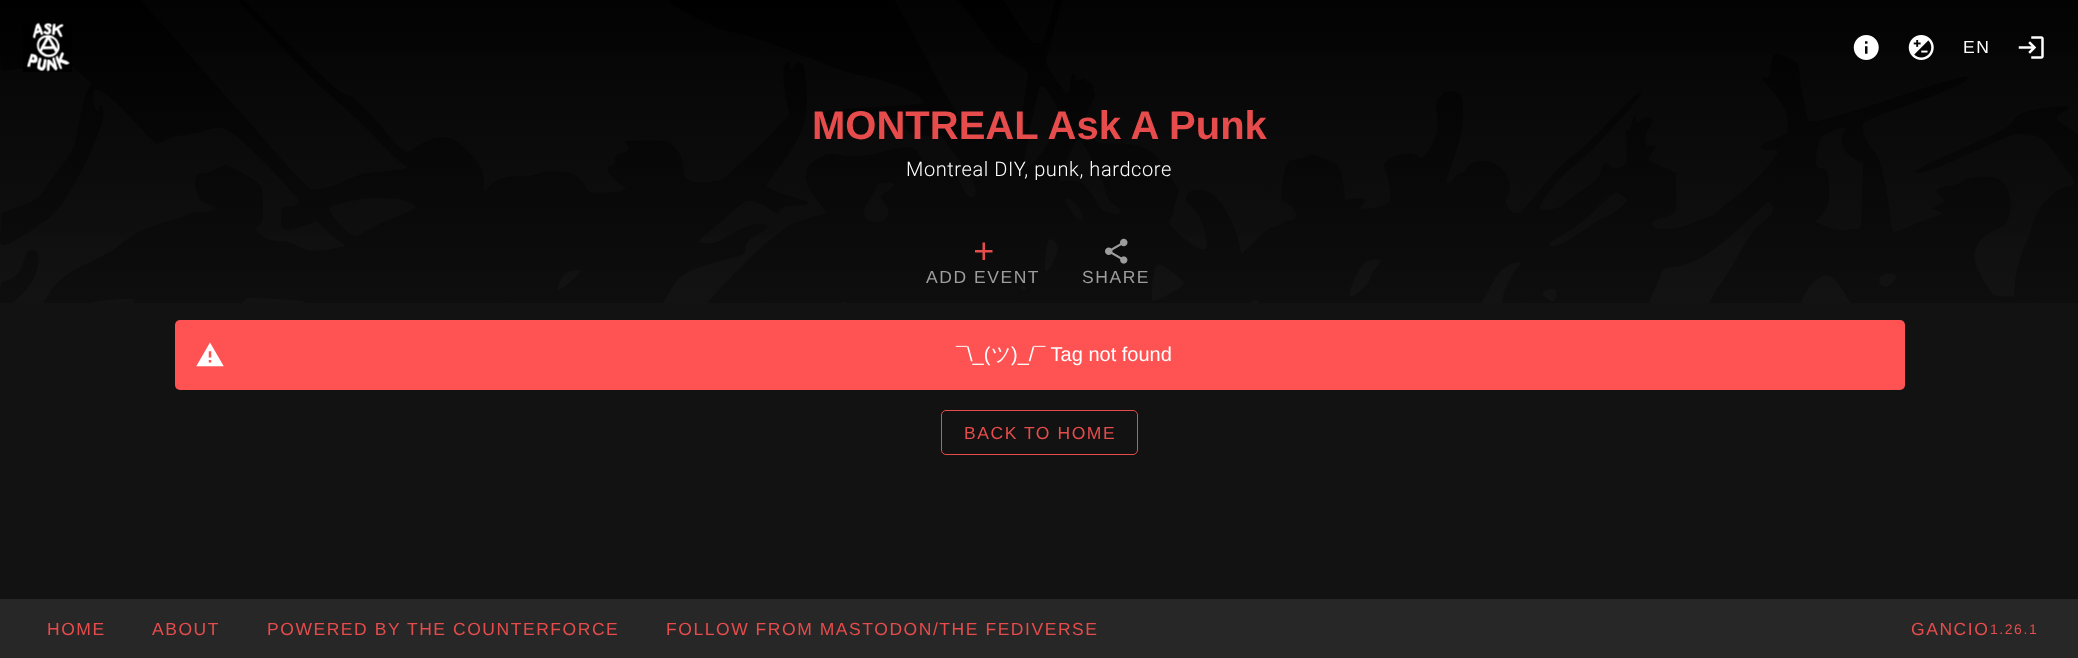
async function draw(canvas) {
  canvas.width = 2078;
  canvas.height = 658;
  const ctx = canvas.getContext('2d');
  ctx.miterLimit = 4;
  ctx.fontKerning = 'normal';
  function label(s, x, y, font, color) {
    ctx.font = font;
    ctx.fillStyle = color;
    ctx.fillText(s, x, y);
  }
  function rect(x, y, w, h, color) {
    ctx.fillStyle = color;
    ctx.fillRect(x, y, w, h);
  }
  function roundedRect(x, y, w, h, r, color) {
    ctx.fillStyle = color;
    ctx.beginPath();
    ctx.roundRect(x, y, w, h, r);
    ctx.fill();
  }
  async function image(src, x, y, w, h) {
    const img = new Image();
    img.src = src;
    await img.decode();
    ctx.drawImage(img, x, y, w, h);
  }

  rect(0, 0, 2078, 658, '#121212');
  await image('assets/img1.png', 0, 0, 2078, 303);
  await image('assets/img2.png', 23, 22, 49, 50);
  await image('assets/img3.png', 1853, 35, 26, 25);
  await image('assets/img4.png', 1908, 35, 26, 25);
  ctx.letterSpacing = '1.55px';
  label('EN', 1963, 53, '17.5px Liberation Sans', '#fff');
  await image('assets/img5.png', 2018, 36, 26, 23);
  ctx.letterSpacing = '0px';
  label('MONTREAL Ask A Punk', 812, 139, 'bold 40px Liberation Sans', '#e64c4c');
  ctx.letterSpacing = '0.6px';
  label('Montreal DIY, punk, hardcore', 906, 176, '300 20px Roboto', '#fff');
  await image('assets/img6.png', 975, 242, 18, 18);
  ctx.letterSpacing = '1.55px';
  label('ADD EVENT', 926, 283, '17.5px Liberation Sans', '#9e9e9e');
  await image('assets/img7.png', 1105, 238, 23, 26);
  label('SHARE', 1082, 283, '17.5px Liberation Sans', '#9e9e9e');
  roundedRect(175, 320, 1730, 70, 5, '#ff5252');
  await image('assets/img8.png', 196, 342, 28, 25);
  ctx.letterSpacing = '0px';
  label('¯\\_(', 956, 361, '20px Liberation Sans', '#fff');
  label('ツ', 991, 361, '500 20px WenQuanYi Zen Hei', '#fff');
  label(')_/¯ Tag not found', 1011, 361, '20px Liberation Sans', '#fff');
  ctx.beginPath();
  ctx.roundRect(941.5, 410.5, 196, 44, 4.5);
  ctx.strokeStyle = '#e64c4c';
  ctx.stroke();
  roundedRect(943, 411, 193, 43, 5, '#121212');
  ctx.letterSpacing = '1.55px';
  label('BACK TO HOME', 964, 439, '17.5px Liberation Sans', '#e64c4c');
  rect(0, 599, 2078, 59, '#272727');
  label('HOME', 47, 635, '17.5px Liberation Sans', '#e64c4c');
  label('ABOUT', 152, 635, '17.5px Liberation Sans', '#e64c4c');
  label('POWERED BY THE COUNTERFORCE', 267, 635, '17.5px Liberation Sans', '#e64c4c');
  label('FOLLOW FROM MASTODON/THE FEDIVERSE', 666, 635, '17.5px Liberation Sans', '#e64c4c');
  label('GANCIO', 1911, 635, '17.5px Liberation Sans', '#e64c4c');
  label('1.26.1', 1990, 634, '14px Liberation Sans', '#e64c4c');
}

draw(document.querySelector('canvas'));
